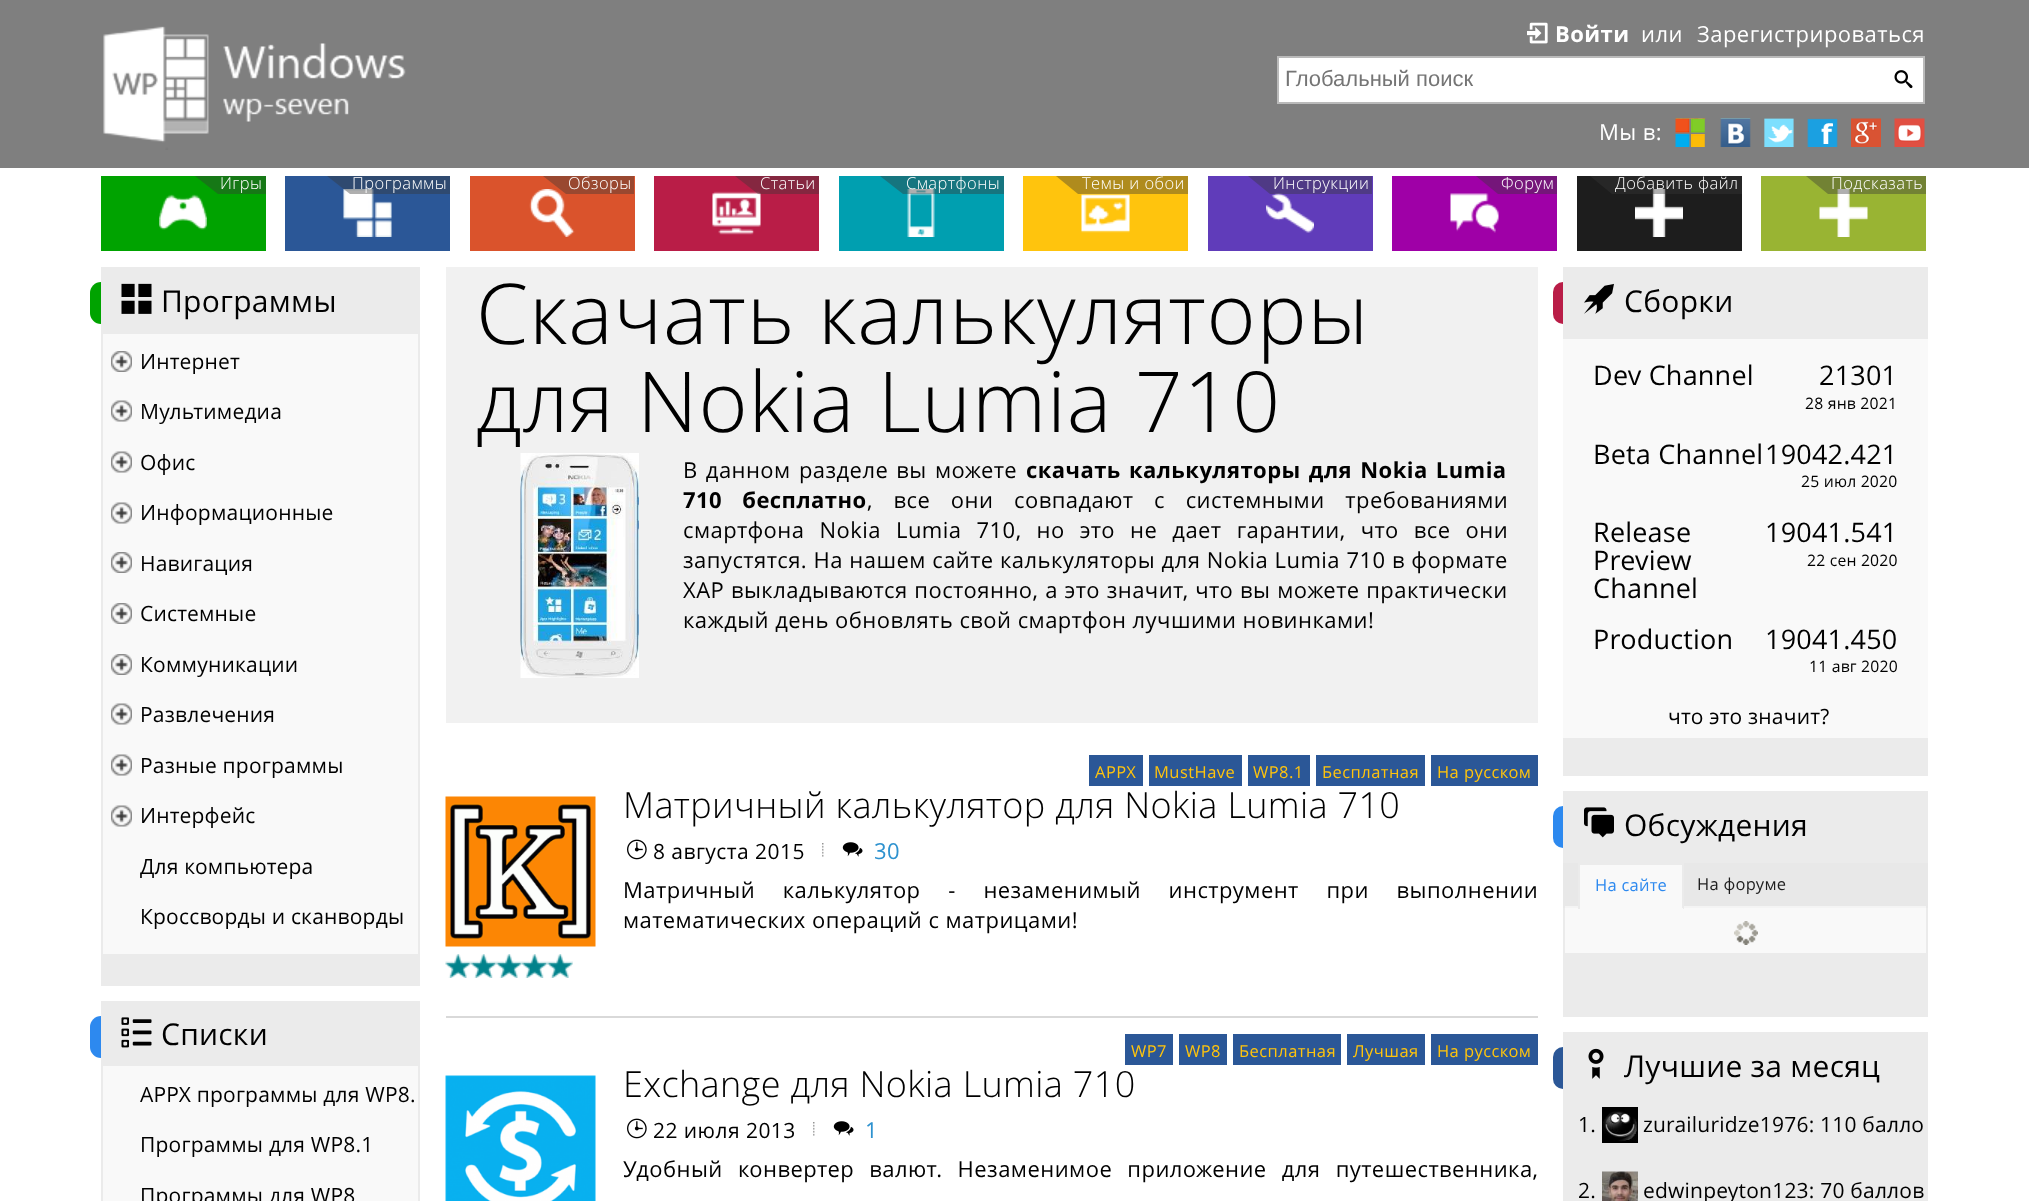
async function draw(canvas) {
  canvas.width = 2029;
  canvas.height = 1201;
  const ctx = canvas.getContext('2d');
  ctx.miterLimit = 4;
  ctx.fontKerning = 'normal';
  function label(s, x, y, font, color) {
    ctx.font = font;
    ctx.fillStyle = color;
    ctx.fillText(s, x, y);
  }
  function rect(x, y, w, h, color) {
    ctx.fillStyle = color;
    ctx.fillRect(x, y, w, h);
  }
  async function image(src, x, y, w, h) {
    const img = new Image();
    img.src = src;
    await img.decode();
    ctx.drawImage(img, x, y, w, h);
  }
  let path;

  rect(0, 0, 2029, 1201, '#fff');
  rect(0, 0, 2029, 168, '#7f7f7f');
  await image('assets/img1.png', 103, 26, 303, 124);
  await image('assets/img2.png', 1527, 22, 21, 22);
  ctx.letterSpacing = '0.45px';
  label('Войти', 1555, 42, 'bold 22px Open Sans', '#fff');
  label('или', 1641, 42, '22px Open Sans', '#fff');
  label('Зарегистрироваться', 1697, 42, '22px Open Sans', '#fff');
  ctx.beginPath();
  ctx.rect(1278, 57, 646, 46);
  ctx.fill();
  ctx.strokeStyle = '#bababa';
  ctx.lineWidth = 2;
  ctx.stroke();
  ctx.letterSpacing = '0px';
  label('Глобальный поиск', 1285, 86, '22px Liberation Sans', '#757575');
  await image('assets/img3.png', 1894, 70, 19, 19);
  ctx.letterSpacing = '0.45px';
  label('Мы в:', 1599, 140, '22px Open Sans', '#fff');
  await image('assets/img4.png', 1675, 118, 31, 29);
  await image('assets/img5.png', 1720, 118, 31, 29);
  await image('assets/img6.png', 1764, 118, 30, 29);
  await image('assets/img7.png', 1807, 118, 31, 29);
  await image('assets/img8.png', 1851, 118, 30, 29);
  await image('assets/img9.png', 1894, 118, 31, 29);
  rect(101, 176, 165, 75, '#00a300');
  ctx.fillStyle = '#167816';
  path = new Path2D('M195 176H266V194H218Z');
  ctx.fill(path);
  label('Игры', 220, 189, '300 16.5px Open Sans', '#fff');
  await image('assets/img10.png', 159, 194, 48, 36);
  rect(285, 176, 165, 75, '#2b5797');
  await image('assets/img11.png', 343, 189, 49, 48);
  ctx.fillStyle = '#37373766';
  path = new Path2D('M327 176H450V194H350Z');
  ctx.fill(path);
  label('Программы', 352, 189, '300 16.5px Open Sans', '#fff');
  rect(470, 176, 165, 75, '#da532c');
  await image('assets/img12.png', 529, 189, 46, 48);
  ctx.fillStyle = '#994830';
  path = new Path2D('M543 176H634V194H566Z');
  ctx.fill(path);
  label('Обзоры', 568, 189, '300 16.5px Open Sans', '#fff');
  rect(654, 176, 165, 75, '#b91d47');
  await image('assets/img13.png', 712, 191, 49, 44);
  ctx.fillStyle = '#37373766';
  path = new Path2D('M735 176H819V194H758Z');
  ctx.fill(path);
  label('Статьи', 760, 189, '300 16.5px Open Sans', '#fff');
  rect(839, 176, 165, 75, '#009fb0');
  await image('assets/img14.png', 907, 189, 28, 48);
  ctx.fillStyle = '#37373766';
  path = new Path2D('M880 176H1004V194H903Z');
  ctx.fill(path);
  label('Смартфоны', 906, 189, '300 16.5px Open Sans', '#fff');
  rect(1023, 176, 165, 75, '#ffc40d');
  await image('assets/img15.png', 1081, 193, 49, 40);
  ctx.fillStyle = '#37373766';
  path = new Path2D('M1056 176H1188V194H1078Z');
  ctx.fill(path);
  label('Темы и обои', 1082, 189, '300 16.5px Open Sans', '#fff');
  rect(1208, 176, 165, 75, '#603cba');
  await image('assets/img16.png', 1266, 193, 48, 40);
  ctx.fillStyle = '#37373766';
  path = new Path2D('M1248 176H1372V194H1270Z');
  ctx.fill(path);
  label('Инструкции', 1273, 189, '300 16.5px Open Sans', '#fff');
  rect(1392, 176, 165, 75, '#9f00a7');
  await image('assets/img17.png', 1450, 193, 49, 40);
  ctx.fillStyle = '#75167a';
  path = new Path2D('M1476 176H1557V194H1498Z');
  ctx.fill(path);
  label('Форум', 1501, 189, '300 16.5px Open Sans', '#fff');
  rect(1577, 176, 165, 75, '#1d1d1d');
  await image('assets/img18.png', 1635, 189, 48, 48);
  ctx.fillStyle = '#37373766';
  path = new Path2D('M1590 176H1742V194H1612Z');
  ctx.fill(path);
  label('Добавить файл', 1615, 189, '300 16.5px Open Sans', '#fff');
  rect(1761, 176, 165, 75, '#99b433');
  await image('assets/img19.png', 1819, 189, 49, 48);
  ctx.fillStyle = '#37373766';
  path = new Path2D('M1806 176H1926V194H1828Z');
  ctx.fill(path);
  label('Подсказать', 1831, 189, '300 16.5px Open Sans', '#fff');
  rect(101, 267, 319, 719, '#ebebeb');
  ctx.fillStyle = '#00a300';
  ctx.beginPath();
  ctx.roundRect(90, 282, 11, 42, [11, 0, 0, 11]);
  ctx.fill();
  await image('assets/img20.png', 121, 283, 31, 31);
  ctx.letterSpacing = '0.25px';
  label('Программы', 161, 312, '30px Open Sans', '#000');
  rect(103, 334, 315, 620, '#f9f9f9');
  await image('assets/img21.png', 111, 351, 21, 21);
  ctx.letterSpacing = '0.2px';
  label('Интернет', 140, 369, '21px Open Sans', '#000');
  await image('assets/img22.png', 111, 400, 21, 22);
  label('Мультимедиа', 140, 419, '21px Open Sans', '#000');
  await image('assets/img22.png', 111, 451, 21, 22);
  label('Офис', 140, 470, '21px Open Sans', '#000');
  await image('assets/img22.png', 111, 502, 21, 22);
  label('Информационные', 140, 520, '21px Open Sans', '#000');
  await image('assets/img21.png', 111, 552, 21, 21);
  label('Навигация', 140, 571, '21px Open Sans', '#000');
  await image('assets/img21.png', 111, 603, 21, 21);
  label('Системные', 140, 621, '21px Open Sans', '#000');
  await image('assets/img21.png', 111, 654, 21, 21);
  label('Коммуникации', 140, 672, '21px Open Sans', '#000');
  await image('assets/img22.png', 111, 703, 21, 22);
  label('Развлечения', 140, 722, '21px Open Sans', '#000');
  await image('assets/img22.png', 111, 754, 21, 22);
  label('Разные программы', 140, 773, '21px Open Sans', '#000');
  await image('assets/img22.png', 111, 805, 21, 22);
  label('Интерфейс', 140, 823, '21px Open Sans', '#000');
  label('Для компьютера', 140, 874, '21px Open Sans', '#000');
  label('Кроссворды и сканворды', 140, 924, '21px Open Sans', '#000');
  rect(101, 1001, 319, 63, '#ebebeb');
  ctx.fillStyle = '#2d89ef';
  ctx.beginPath();
  ctx.roundRect(90, 1016, 11, 42, [11, 0, 0, 11]);
  ctx.fill();
  await image('assets/img23.png', 121, 1017, 31, 31);
  ctx.letterSpacing = '0.25px';
  label('Списки', 161, 1045, '30px Open Sans', '#000');
  ctx.fillStyle = '#f9f9f9';
  ctx.beginPath();
  ctx.rect(102, 1065, 317, 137);
  ctx.fill();
  ctx.strokeStyle = '#ebebeb';
  ctx.stroke();
  ctx.letterSpacing = '0.2px';
  label('APPX программы для WP8.', 140, 1102, '21px Open Sans', '#000');
  label('Программы для WP8.1', 140, 1152, '21px Open Sans', '#000');
  label('Программы для WP8', 140, 1203, '21px Open Sans', '#000');
  rect(446, 267, 1092, 456, '#f1f1f1');
  ctx.letterSpacing = '0.8px';
  label('Скачать калькуляторы', 476, 344, '300 84px Open Sans', '#000');
  label('для Nokia Lumia 710', 476, 432, '300 84px Open Sans', '#000');
  await image('assets/img24.png', 520, 453, 119, 225);
  ctx.letterSpacing = '0.45px';
  ctx.wordSpacing = '2px';
  label('В данном разделе вы можете', 683, 478, '22px Open Sans', '#000');
  label('скачать калькуляторы для Nokia Lumia', 1026, 478, 'bold 22px Open Sans', '#000');
  ctx.wordSpacing = '14px';
  label('710 бесплатно', 683, 508, 'bold 22px Open Sans', '#000');
  ctx.wordSpacing = '14.5px';
  label(', все они совпадают с системными требованиями', 867, 508, '22px Open Sans', '#000');
  ctx.wordSpacing = '8.9px';
  label('смартфона Nokia Lumia 710, но это не дает гарантии, что все они', 683, 538, '22px Open Sans', '#000');
  ctx.wordSpacing = '0.25px';
  label('запустятся. На нашем сайте калькуляторы для Nokia Lumia 710 в формате', 683, 568, '22px Open Sans', '#000');
  ctx.wordSpacing = '0.6px';
  label('XAP выкладываются постоянно, а это значит, что вы можете практически', 683, 598, '22px Open Sans', '#000');
  ctx.wordSpacing = '0px';
  label('каждый день обновлять свой смартфон лучшими новинками!', 683, 628, '22px Open Sans', '#000');
  rect(446, 1016, 1092, 2, '#d9d9d9');
  rect(1089, 755, 54, 31, '#2b5797');
  label('APPX', 1095, 778, '16.5px Open Sans', '#ffc40d');
  rect(1149, 755, 93, 31, '#2b5797');
  label('MustHave', 1154, 778, '16.5px Open Sans', '#ffc40d');
  rect(1248, 755, 62, 31, '#2b5797');
  label('WP8.1', 1253, 778, '16.5px Open Sans', '#ffc40d');
  rect(1316, 755, 109, 31, '#2b5797');
  label('Бесплатная', 1322, 778, '16.5px Open Sans', '#ffc40d');
  rect(1431, 755, 107, 31, '#2b5797');
  label('На русском', 1437, 778, '16.5px Open Sans', '#ffc40d');
  await image('assets/img25.png', 445, 796, 151, 151);
  await image('assets/img26.png', 445, 954, 26, 24);
  await image('assets/img27.png', 471, 954, 26, 24);
  await image('assets/img28.png', 496, 954, 26, 24);
  await image('assets/img29.png', 522, 954, 26, 24);
  await image('assets/img30.png', 547, 954, 26, 24);
  ctx.letterSpacing = '0.35px';
  label('Матричный калькулятор для Nokia Lumia 710', 623, 818, '300 36px Open Sans', '#000');
  await image('assets/img31.png', 627, 839, 20, 21);
  ctx.letterSpacing = '0.45px';
  label('8 августа 2015', 653, 859, '21px Open Sans', '#000');
  await image('assets/img32.png', 822, 843, 2, 14);
  await image('assets/img33.png', 842, 842, 21, 15);
  label('30', 874, 859, '22px Open Sans', '#2e92cf');
  ctx.wordSpacing = '21.5px';
  label('Матричный калькулятор - незаменимый инструмент при выполнении', 623, 898, '22px Open Sans', '#000');
  ctx.wordSpacing = '0px';
  label('математических операций с матрицами!', 623, 928, '22px Open Sans', '#000');
  rect(1125, 1034, 48, 31, '#2b5797');
  label('WP7', 1131, 1057, '16.5px Open Sans', '#ffc40d');
  rect(1179, 1034, 48, 31, '#2b5797');
  label('WP8', 1185, 1057, '16.5px Open Sans', '#ffc40d');
  rect(1233, 1034, 108, 31, '#2b5797');
  label('Бесплатная', 1239, 1057, '16.5px Open Sans', '#ffc40d');
  rect(1347, 1034, 78, 31, '#2b5797');
  label('Лучшая', 1353, 1057, '16.5px Open Sans', '#ffc40d');
  rect(1431, 1034, 107, 31, '#2b5797');
  label('На русском', 1437, 1057, '16.5px Open Sans', '#ffc40d');
  await image('assets/img34.png', 445, 1075, 151, 126);
  ctx.letterSpacing = '0.35px';
  label('Exchange для Nokia Lumia 710', 623, 1097, '300 36px Open Sans', '#000');
  await image('assets/img31.png', 627, 1118, 20, 21);
  ctx.letterSpacing = '0.45px';
  label('22 июля 2013', 653, 1138, '21px Open Sans', '#000');
  await image('assets/img32.png', 813, 1122, 2, 14);
  await image('assets/img33.png', 833, 1121, 21, 15);
  label('1', 865, 1138, '22px Open Sans', '#2e92cf');
  ctx.wordSpacing = '9px';
  label('Удобный конвертер валют. Незаменимое приложение для путешественника,', 623, 1177, '22px Open Sans', '#000');
  rect(1563, 267, 365, 509, '#ebebeb');
  ctx.fillStyle = '#b91d47';
  ctx.beginPath();
  ctx.roundRect(1553, 282, 10, 42, [10, 0, 0, 10]);
  ctx.fill();
  await image('assets/img35.png', 1584, 283, 30, 31);
  ctx.letterSpacing = '0.25px';
  ctx.wordSpacing = '0px';
  label('Сборки', 1624, 312, '30px Open Sans', '#000');
  rect(1563, 339, 365, 399, '#f9f9f9');
  ctx.letterSpacing = '0.2px';
  label('Dev Channel', 1593, 385, '27px Open Sans', '#000');
  label('21301', 1819, 385, '27px Open Sans', '#000');
  label('28 янв 2021', 1805, 409, '15.75px Open Sans', '#000');
  label('Beta Channel', 1593, 464, '27px Open Sans', '#000');
  label('19042.421', 1765, 464, '27px Open Sans', '#000');
  label('25 июл 2020', 1801, 487, '15.75px Open Sans', '#000');
  label('Release', 1593, 542, '27px Open Sans', '#000');
  label('Preview', 1593, 570, '27px Open Sans', '#000');
  label('Channel', 1593, 598, '27px Open Sans', '#000');
  label('19041.541', 1765, 542, '27px Open Sans', '#000');
  label('22 сен 2020', 1807, 566, '15.75px Open Sans', '#000');
  label('Production', 1593, 649, '27px Open Sans', '#000');
  label('19041.450', 1765, 649, '27px Open Sans', '#000');
  label('11 авг 2020', 1809, 672, '15.75px Open Sans', '#000');
  label('что это значит?', 1668, 724, '21px Open Sans', '#000');
  rect(1563, 791, 365, 226, '#ebebeb');
  rect(1563, 863, 365, 45, '#e8e8e8');
  ctx.fillStyle = '#2d89ef';
  ctx.beginPath();
  ctx.roundRect(1553, 806, 10, 42, [10, 0, 0, 10]);
  ctx.fill();
  await image('assets/img36.png', 1584, 807, 30, 31);
  ctx.letterSpacing = '0.25px';
  label('Обсуждения', 1624, 836, '30px Open Sans', '#000');
  rect(1565, 906, 361, 2, '#f4f4f4');
  rect(1580, 865, 102, 43, '#f9f9f9');
  rect(1578, 863, 105, 2, '#ebebeb');
  rect(1565, 908, 361, 45, '#f9f9f9');
  rect(1682, 863, 2, 46, '#ebebeb');
  rect(1682, 908, 1, 1, '#f9f9f9');
  rect(1578, 863, 2, 46, '#ebebeb');
  label('На сайте', 1595, 891, '16.5px Open Sans', '#2d89ef');
  label('На форуме', 1697, 890, '16.5px Open Sans', '#1e1e1e');
  await image('assets/img37.png', 1734, 921, 24, 24);
  rect(1563, 1032, 365, 169, '#ebebeb');
  ctx.fillStyle = '#2b5797';
  ctx.beginPath();
  ctx.roundRect(1553, 1047, 10, 42, [10, 0, 0, 10]);
  ctx.fill();
  await image('assets/img38.png', 1588, 1048, 16, 31);
  label('Лучшие за месяц', 1624, 1077, '30px Open Sans', '#000');
  ctx.letterSpacing = '0.2px';
  label('1.', 1578, 1132, '21px Open Sans', '#000');
  await image('assets/img39.png', 1602, 1107, 36, 36);
  label('zurailuridze1976: 110 балло', 1643, 1132, '21px Open Sans', '#000');
  label('2.', 1578, 1198, '21px Open Sans', '#000');
  await image('assets/img40.png', 1602, 1171, 36, 30);
  label('edwinpeyton123: 70 баллов', 1643, 1198, '21px Open Sans', '#000');
}

draw(document.querySelector('canvas'));
